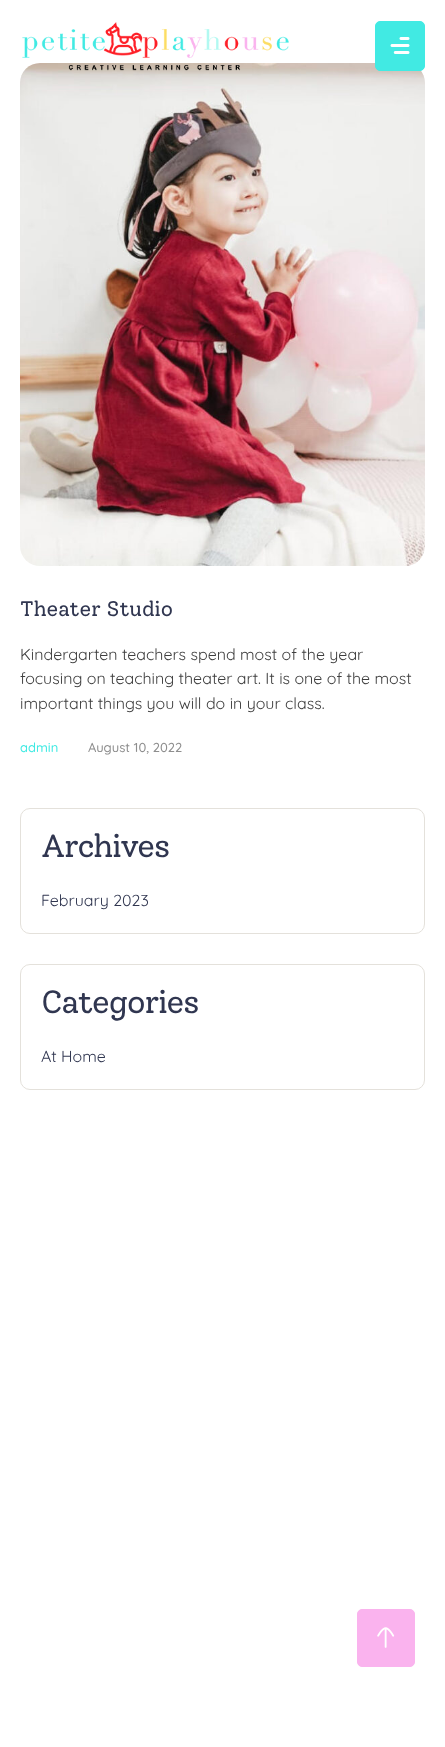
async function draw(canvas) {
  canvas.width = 445;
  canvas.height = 1747;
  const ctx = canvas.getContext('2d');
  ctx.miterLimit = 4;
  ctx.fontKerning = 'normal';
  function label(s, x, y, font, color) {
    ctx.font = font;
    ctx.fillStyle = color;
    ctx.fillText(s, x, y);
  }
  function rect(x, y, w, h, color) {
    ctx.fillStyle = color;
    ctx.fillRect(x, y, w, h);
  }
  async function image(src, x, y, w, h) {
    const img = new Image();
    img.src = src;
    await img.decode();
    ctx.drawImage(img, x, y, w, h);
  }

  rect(0, 0, 445, 1747, '#fff');
  await image('assets/img4.png', 20, 63, 405, 503);
  await image('assets/img1.png', 22, 22, 267, 49);
  ctx.fillStyle = '#41eae3';
  ctx.beginPath();
  ctx.roundRect(375.5, 21.5, 49, 49, 4.5);
  ctx.fill();
  ctx.strokeStyle = '#41eae3';
  ctx.stroke();
  await image('assets/img2.png', 390, 37, 20, 17);
  ctx.fillStyle = '#fab3ee';
  ctx.beginPath();
  ctx.roundRect(357.5, 1609.5, 57, 57, 4.5);
  ctx.fill();
  ctx.strokeStyle = '#fab3ee';
  ctx.stroke();
  await image('assets/img3.png', 377, 1627, 18, 21);
  label('Theater Studio', 20, 616, '21px Solway', '#303650');
  label('Kindergarten teachers spend most of the year', 20, 660, '16px Quicksand', '#3e3e3e');
  label('focusing on teaching theater art. It is one of the most', 20, 684, '16px Quicksand', '#3e3e3e');
  label('important things you will do in your class.', 20, 709, '16px Quicksand', '#3e3e3e');
  label('admin', 20, 752, '500 13px Quicksand', '#41eae3');
  label('August 10, 2022', 88, 752, '500 13px Quicksand', '#8e8e8e');
  ctx.beginPath();
  ctx.roundRect(20.5, 808.5, 404, 125, 9.5);
  ctx.strokeStyle = '#e4e1db';
  ctx.stroke();
  ctx.letterSpacing = '-1px';
  label('Archives', 41, 857, '32px Solway', '#303650');
  ctx.letterSpacing = '0px';
  label('February 2023', 41, 906, '16px Quicksand', '#303650');
  ctx.beginPath();
  ctx.roundRect(20.5, 964.5, 404, 125, 9.5);
  ctx.stroke();
  ctx.letterSpacing = '-1px';
  label('Categories', 41, 1013, '32px Solway', '#303650');
  ctx.letterSpacing = '0px';
  label('At Home', 41, 1062, '16px Quicksand', '#303650');
}

draw(document.querySelector('canvas'));
